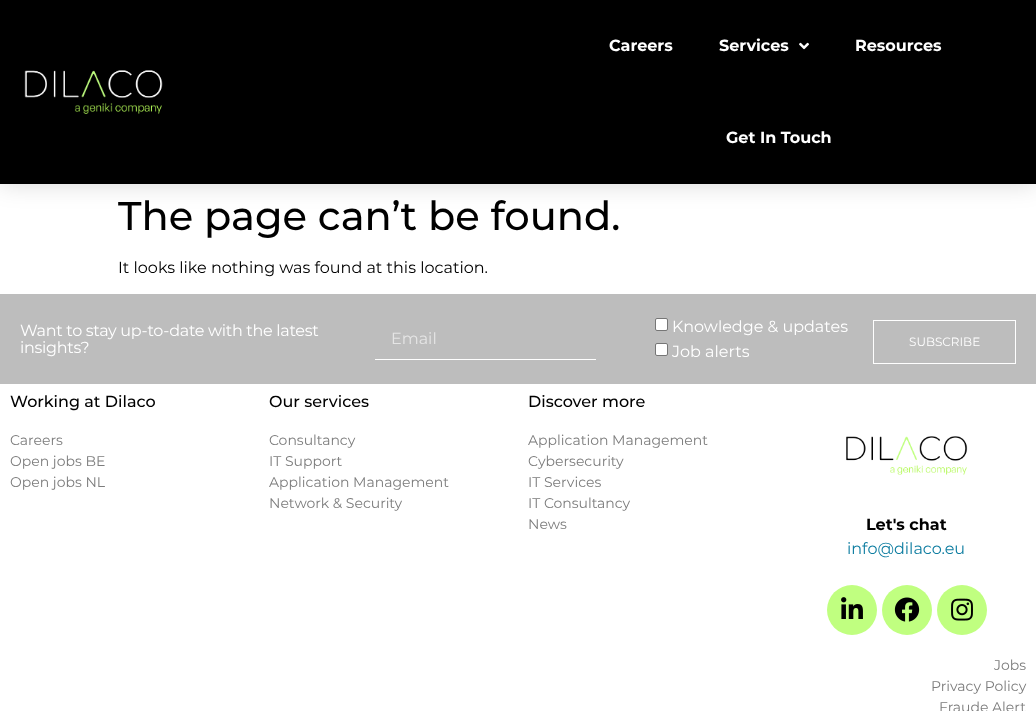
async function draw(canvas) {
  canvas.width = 1036;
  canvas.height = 711;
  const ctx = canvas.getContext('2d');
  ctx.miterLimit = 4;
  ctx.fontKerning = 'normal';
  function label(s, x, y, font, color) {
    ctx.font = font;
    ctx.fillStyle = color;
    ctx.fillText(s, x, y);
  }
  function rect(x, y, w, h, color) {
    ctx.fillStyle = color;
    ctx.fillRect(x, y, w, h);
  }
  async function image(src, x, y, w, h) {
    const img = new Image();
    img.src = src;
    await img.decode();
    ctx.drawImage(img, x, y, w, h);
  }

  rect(0, 0, 1036, 711, '#fff');
  ctx.fillStyle = '#00000026';
  ctx.filter = 'blur(12px)';
  ctx.beginPath();
  ctx.rect(0, 0, 1036, 184);
  ctx.fill();
  ctx.filter = 'none';
  rect(0, 0, 1036, 184, '#000');
  await image('assets/img1.png', 24, 70, 139, 44);
  label('Careers', 609, 51, 'bold 16px Montserrat', '#fff');
  label('Services', 719, 51, 'bold 16px Montserrat', '#fff');
  await image('assets/img2.png', 799, 42, 10, 8);
  label('Resources', 855, 51, 'bold 16px Montserrat', '#fff');
  label('Get In Touch', 726, 143, 'bold 16px Montserrat', '#fff');
  label('The page can’t be found.', 118, 230, '500 40px Montserrat', '#000');
  label('It looks like nothing was found at this location.', 118, 273, '16px Montserrat', '#000');
  rect(0, 294, 1036, 90, '#bdbdbd');
  ctx.letterSpacing = '-0.3px';
  label('Want to stay up-to-date with the latest', 20, 336, '16px Montserrat', '#fff');
  label('insights?', 20, 353, '16px Montserrat', '#fff');
  rect(375, 359, 221, 1, '#fff');
  ctx.letterSpacing = '0px';
  label('Email', 391, 344, '16px Montserrat', '#e5e5e5');
  ctx.fillStyle = '#fff';
  ctx.beginPath();
  ctx.roundRect(655.5, 318.5, 12, 12, 1.5);
  ctx.fill();
  ctx.strokeStyle = '#767676';
  ctx.stroke();
  label('Knowledge & updates', 672, 332, '16px Montserrat', '#fff');
  ctx.beginPath();
  ctx.roundRect(655.5, 343.5, 12, 12, 1.5);
  ctx.fill();
  ctx.stroke();
  label('Job alerts', 672, 357, '16px Montserrat', '#fff');
  ctx.strokeStyle = '#fff';
  ctx.strokeRect(873.5, 320.5, 142, 43);
  label('SUBSCRIBE', 909, 346, '12px Montserrat', '#fff');
  label('Working at Dilaco', 10, 407, '500 16px Montserrat', '#000');
  label('Careers', 10, 445, '14px Montserrat', '#7c7c7c');
  label('Open jobs BE', 10, 466, '14px Montserrat', '#7c7c7c');
  label('Open jobs NL', 10, 487, '14px Montserrat', '#7c7c7c');
  label('Our services', 269, 407, '500 16px Montserrat', '#000');
  label('Consultancy', 269, 445, '14px Montserrat', '#7c7c7c');
  label('IT Support', 269, 466, '14px Montserrat', '#7c7c7c');
  label('Application Management', 269, 487, '14px Montserrat', '#7c7c7c');
  label('Network & Security', 269, 508, '14px Montserrat', '#7c7c7c');
  label('Discover more', 528, 407, '500 16px Montserrat', '#000');
  label('Application Management', 528, 445, '14px Montserrat', '#7c7c7c');
  label('Cybersecurity', 528, 466, '14px Montserrat', '#7c7c7c');
  label('IT Services', 528, 487, '14px Montserrat', '#7c7c7c');
  label('IT Consultancy', 528, 508, '14px Montserrat', '#7c7c7c');
  label('News', 528, 529, '14px Montserrat', '#7c7c7c');
  await image('assets/img3.png', 846, 436, 122, 39);
  label('Let\'s chat', 866, 530, 'bold 16px Montserrat', '#000');
  label('info@dilaco.eu', 847, 554, '16px Montserrat', '#0e7da1');
  ctx.fillStyle = '#c0ff80';
  ctx.beginPath();
  ctx.arc(852, 610, 25, 0, 2 * Math.PI);
  ctx.fill();
  await image('assets/img4.png', 841, 597, 22, 22);
  ctx.beginPath();
  ctx.arc(907, 610, 25, 0, 2 * Math.PI);
  ctx.fill();
  await image('assets/img5.png', 894, 597, 26, 25);
  ctx.beginPath();
  ctx.arc(962, 610, 25, 0, 2 * Math.PI);
  ctx.fill();
  await image('assets/img6.png', 951, 598, 22, 23);
  label('Jobs', 994, 670, '14px Montserrat', '#7c7c7c');
  label('Privacy Policy', 931, 691, '14px Montserrat', '#7c7c7c');
  label('Fraude Alert', 939, 712, '14px Montserrat', '#7c7c7c');
}

draw(document.querySelector('canvas'));
